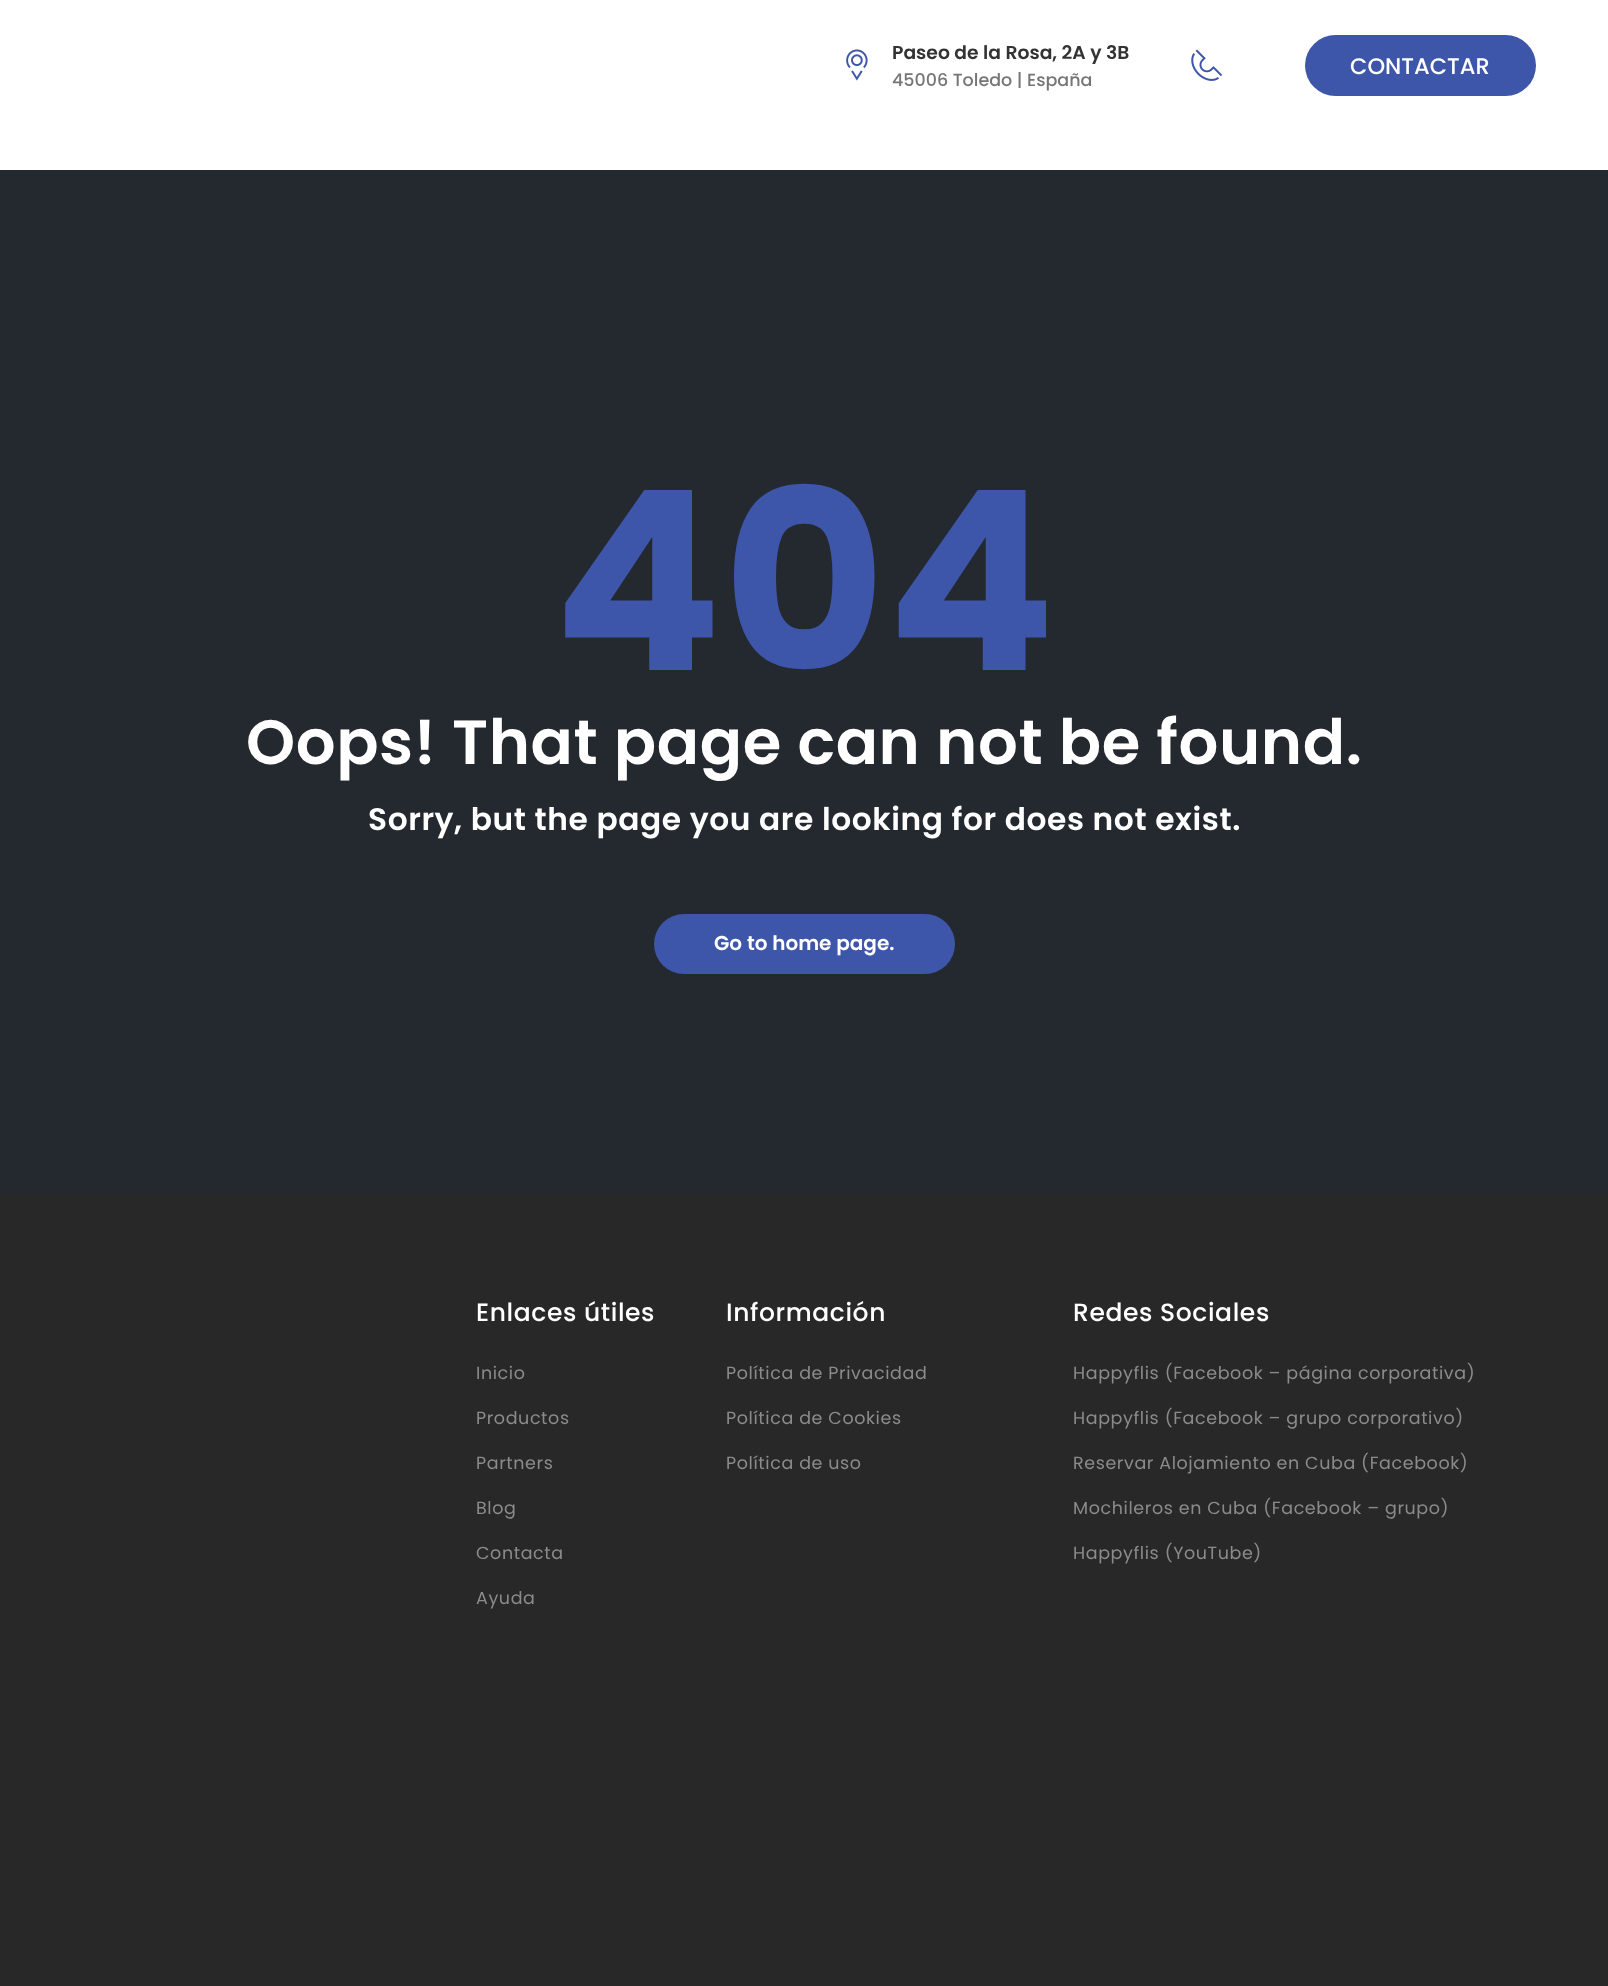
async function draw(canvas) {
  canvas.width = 1608;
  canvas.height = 1986;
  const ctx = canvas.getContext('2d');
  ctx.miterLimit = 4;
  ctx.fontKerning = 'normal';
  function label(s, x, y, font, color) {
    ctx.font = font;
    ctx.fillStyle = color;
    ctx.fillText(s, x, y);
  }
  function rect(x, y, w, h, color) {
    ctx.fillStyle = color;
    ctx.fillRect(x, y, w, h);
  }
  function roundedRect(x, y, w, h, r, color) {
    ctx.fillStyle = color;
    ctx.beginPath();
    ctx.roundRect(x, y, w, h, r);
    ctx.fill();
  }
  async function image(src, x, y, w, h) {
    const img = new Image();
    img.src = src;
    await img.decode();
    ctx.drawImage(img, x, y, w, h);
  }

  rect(0, 0, 1608, 1986, '#fff');
  await image('assets/img1.png', 846, 49, 22, 32);
  label('Paseo de la Rosa, 2A y 3B', 892, 59, '600 18.75px Poppins', '#333');
  label('45006 Toledo | España', 892, 86, '500 17.5px Poppins', '#767676');
  await image('assets/img2.png', 1191, 49, 32, 32);
  roundedRect(1305, 35, 231, 61, 30.5, '#3e56aa');
  label('CONTACTAR', 1350, 74, '500 22.5px Poppins', '#fff');
  rect(0, 170, 1608, 1023, '#24282f');
  ctx.letterSpacing = '0.6px';
  label('404', 553, 670, 'bold 250px Poppins', '#3e56aa');
  label('Oops! That page can not be found.', 246, 764, '600 62.5px Poppins', '#fff');
  label('Sorry, but the page you are looking for does not exist.', 368, 830, '600 31.25px Poppins', '#fff');
  roundedRect(654, 914, 301, 60, 30, '#3e56aa');
  ctx.letterSpacing = '0px';
  label('Go to home page.', 714, 950, '600 20px Poppins', '#fff');
  rect(0, 1193, 1608, 793, '#282828');
  ctx.letterSpacing = '0.6px';
  label('Enlaces útiles', 476, 1321, '500 25px Poppins', '#fff');
  label('Inicio', 476, 1379, '17.5px Poppins', '#8b8b8b');
  label('Productos', 476, 1424, '17.5px Poppins', '#8b8b8b');
  label('Partners', 476, 1469, '17.5px Poppins', '#8b8b8b');
  label('Blog', 476, 1514, '17.5px Poppins', '#8b8b8b');
  label('Contacta', 476, 1559, '17.5px Poppins', '#8b8b8b');
  label('Ayuda', 476, 1604, '17.5px Poppins', '#8b8b8b');
  label('Información', 726, 1321, '500 25px Poppins', '#fff');
  label('Política de Privacidad', 726, 1379, '17.5px Poppins', '#8b8b8b');
  label('Política de Cookies', 726, 1424, '17.5px Poppins', '#8b8b8b');
  label('Política de uso', 726, 1469, '17.5px Poppins', '#8b8b8b');
  label('Redes Sociales', 1073, 1321, '500 25px Poppins', '#fff');
  label('Happyflis (Facebook – página corporativa)', 1073, 1379, '17.5px Poppins', '#8b8b8b');
  label('Happyflis (Facebook – grupo corporativo)', 1073, 1424, '17.5px Poppins', '#8b8b8b');
  label('Reservar Alojamiento en Cuba (Facebook)', 1073, 1469, '17.5px Poppins', '#8b8b8b');
  label('Mochileros en Cuba (Facebook – grupo)', 1073, 1514, '17.5px Poppins', '#8b8b8b');
  label('Happyflis (YouTube)', 1073, 1559, '17.5px Poppins', '#8b8b8b');
}

draw(document.querySelector('canvas'));
